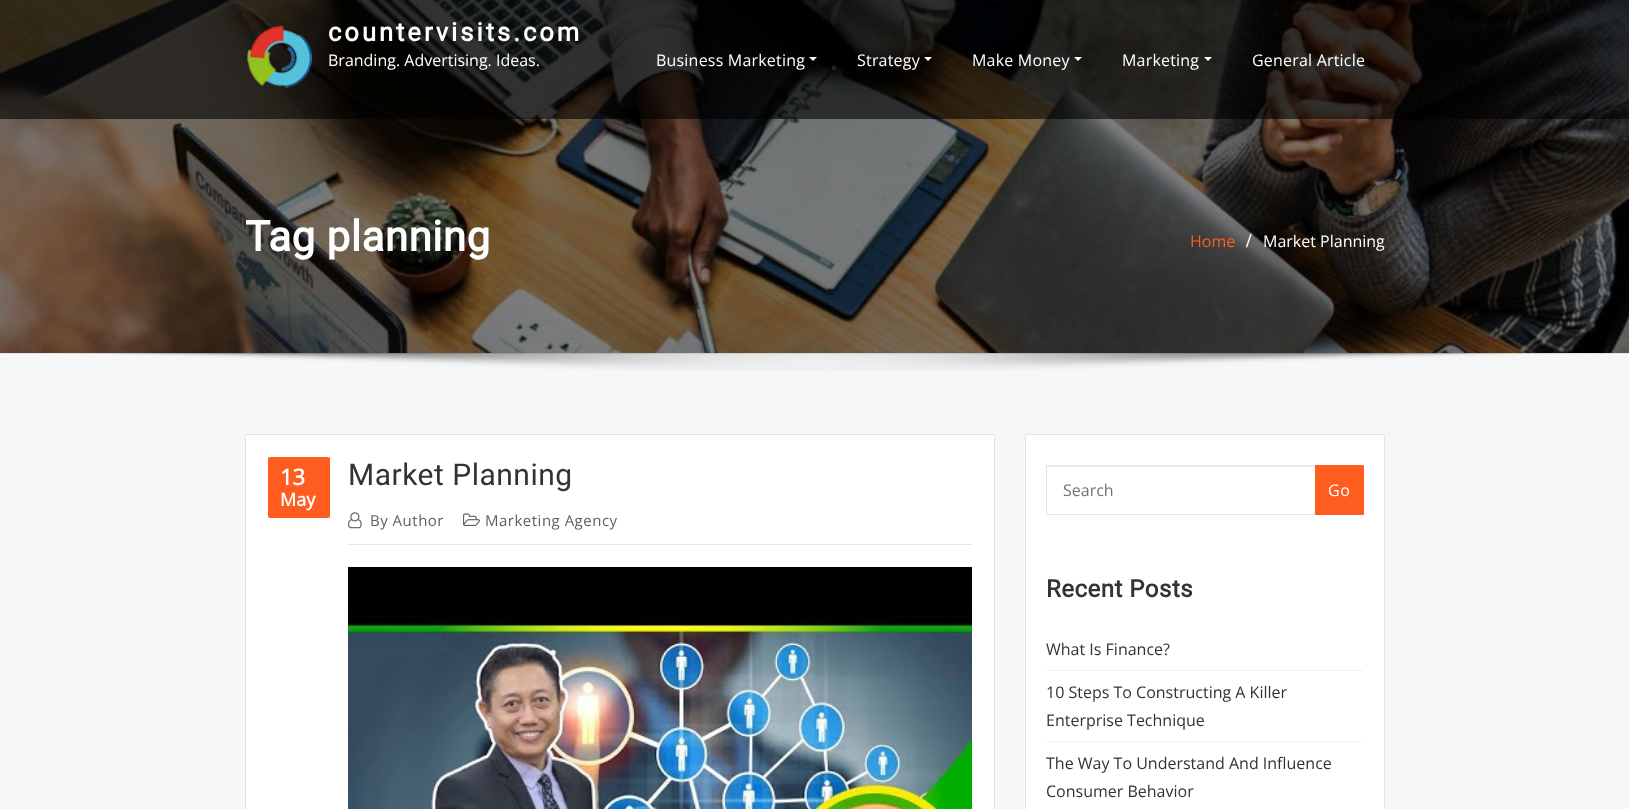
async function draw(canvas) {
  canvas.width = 1629;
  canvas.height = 809;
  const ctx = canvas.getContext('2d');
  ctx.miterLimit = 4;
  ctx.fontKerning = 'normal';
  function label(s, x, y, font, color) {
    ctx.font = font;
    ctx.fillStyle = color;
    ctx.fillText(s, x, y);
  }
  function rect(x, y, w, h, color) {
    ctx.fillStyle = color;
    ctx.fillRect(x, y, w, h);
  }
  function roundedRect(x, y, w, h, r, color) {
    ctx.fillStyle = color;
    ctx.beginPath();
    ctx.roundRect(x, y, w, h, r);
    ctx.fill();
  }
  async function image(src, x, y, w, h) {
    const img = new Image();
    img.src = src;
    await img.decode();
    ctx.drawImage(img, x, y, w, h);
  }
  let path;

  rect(0, 0, 1629, 809, '#fff');
  await image('assets/img2.png', 0, 0, 1629, 353);
  rect(0, 0, 1629, 119, '#00000099');
  await image('assets/img1.png', 246, 25, 66, 64);
  ctx.letterSpacing = '3px';
  label('countervisits.com', 328, 41, 'bold 25.5px Roboto', '#fff');
  ctx.letterSpacing = '0px';
  label('Branding. Advertising. Ideas.', 328, 66, '16px Open Sans', '#fff');
  ctx.letterSpacing = '0.2px';
  label('Business Marketing', 656, 66, '16px Open Sans', '#fff');
  path = new Path2D('M809 57H817L813 61Z');
  ctx.fill(path);
  label('Strategy', 857, 66, '16px Open Sans', '#fff');
  path = new Path2D('M924 57H932L928 61Z');
  ctx.fill(path);
  label('Make Money', 972, 66, '16px Open Sans', '#fff');
  path = new Path2D('M1074 57H1082L1078 61Z');
  ctx.fill(path);
  label('Marketing', 1122, 66, '16px Open Sans', '#fff');
  path = new Path2D('M1204 57H1212L1208 61Z');
  ctx.fill(path);
  label('General Article', 1252, 66, '16px Open Sans', '#fff');
  ctx.letterSpacing = '0.5px';
  label('Tag planning', 245, 251, 'bold 42px Roboto', '#fff');
  ctx.letterSpacing = '0px';
  label('Home', 1190, 247, '16px Open Sans', '#ff5d20');
  ctx.letterSpacing = '2px';
  label('/', 1246, 247, 'bold 20px Liberation Serif', '#fff');
  ctx.letterSpacing = '0px';
  label('Market Planning', 1263, 247, '16px Open Sans', '#fff');
  rect(0, 354, 1629, 455, '#f7f7f7');
  rect(0, 353, 1629, 1, '#e4e4e4');
  await image('assets/img3.png', 63, 353, 1505, 18);
  ctx.fillStyle = '#fff';
  ctx.beginPath();
  ctx.rect(245.5, 434.5, 749, 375);
  ctx.fill();
  ctx.strokeStyle = '#e4e4e4';
  ctx.stroke();
  roundedRect(268, 457, 62, 61, 2, '#ff5d20');
  label('13', 280, 485, 'bold 22px Open Sans', '#fff');
  label('May', 280, 506, 'bold 18px Open Sans', '#fff');
  ctx.letterSpacing = '0.5px';
  label('Market Planning', 348, 485, '30px Roboto', '#333');
  path = new Path2D('M348 544.5H972');
  ctx.strokeStyle = '#cdcdcd';
  ctx.setLineDash([1, 1]);
  ctx.stroke(path);
  await image('assets/img4.png', 348, 512, 14, 17);
  label('By Author', 370, 526, '15px Open Sans', '#606060');
  await image('assets/img5.png', 463, 513, 17, 13);
  label('Marketing Agency', 485, 526, '15px Open Sans', '#606060');
  await image('assets/img6.png', 348, 567, 624, 242);
  ctx.fillStyle = '#fff';
  ctx.beginPath();
  ctx.rect(1025.5, 434.5, 359, 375);
  ctx.fill();
  ctx.strokeStyle = '#e4e4e4';
  ctx.setLineDash([]);
  ctx.stroke();
  rect(1047, 466, 268, 1, '#ececec');
  ctx.strokeStyle = '#e5e5e5';
  ctx.strokeRect(1046.5, 465.5, 269, 49);
  ctx.letterSpacing = '0px';
  label('Search', 1063, 496, '16px Open Sans', '#6c757d');
  ctx.fillStyle = '#ff5d20';
  ctx.beginPath();
  ctx.roundRect(1315.5, 465.5, 48, 49, [0, 0.5, 0.5, 0]);
  ctx.fill();
  ctx.strokeStyle = '#ff5d20';
  ctx.stroke();
  ctx.letterSpacing = '0.5px';
  label('Go', 1328, 496, '16px Open Sans', '#fff');
  label('Recent Posts', 1046, 597, 'bold 24px Roboto', '#333');
  path = new Path2D('M1046 670.5H1364');
  ctx.strokeStyle = '#e9e9e9';
  ctx.setLineDash([1, 1]);
  ctx.stroke(path);
  ctx.letterSpacing = '0px';
  label('What Is Finance?', 1046, 655, '16px Open Sans', '#333');
  path = new Path2D('M1046 741.5H1364');
  ctx.stroke(path);
  label('10 Steps To Constructing A Killer', 1046, 698, '16px Open Sans', '#333');
  label('Enterprise Technique', 1046, 726, '16px Open Sans', '#333');
  label('The Way To Understand And Influence', 1046, 769, '16px Open Sans', '#333');
  label('Consumer Behavior', 1046, 797, '16px Open Sans', '#333');
}

draw(document.querySelector('canvas'));
